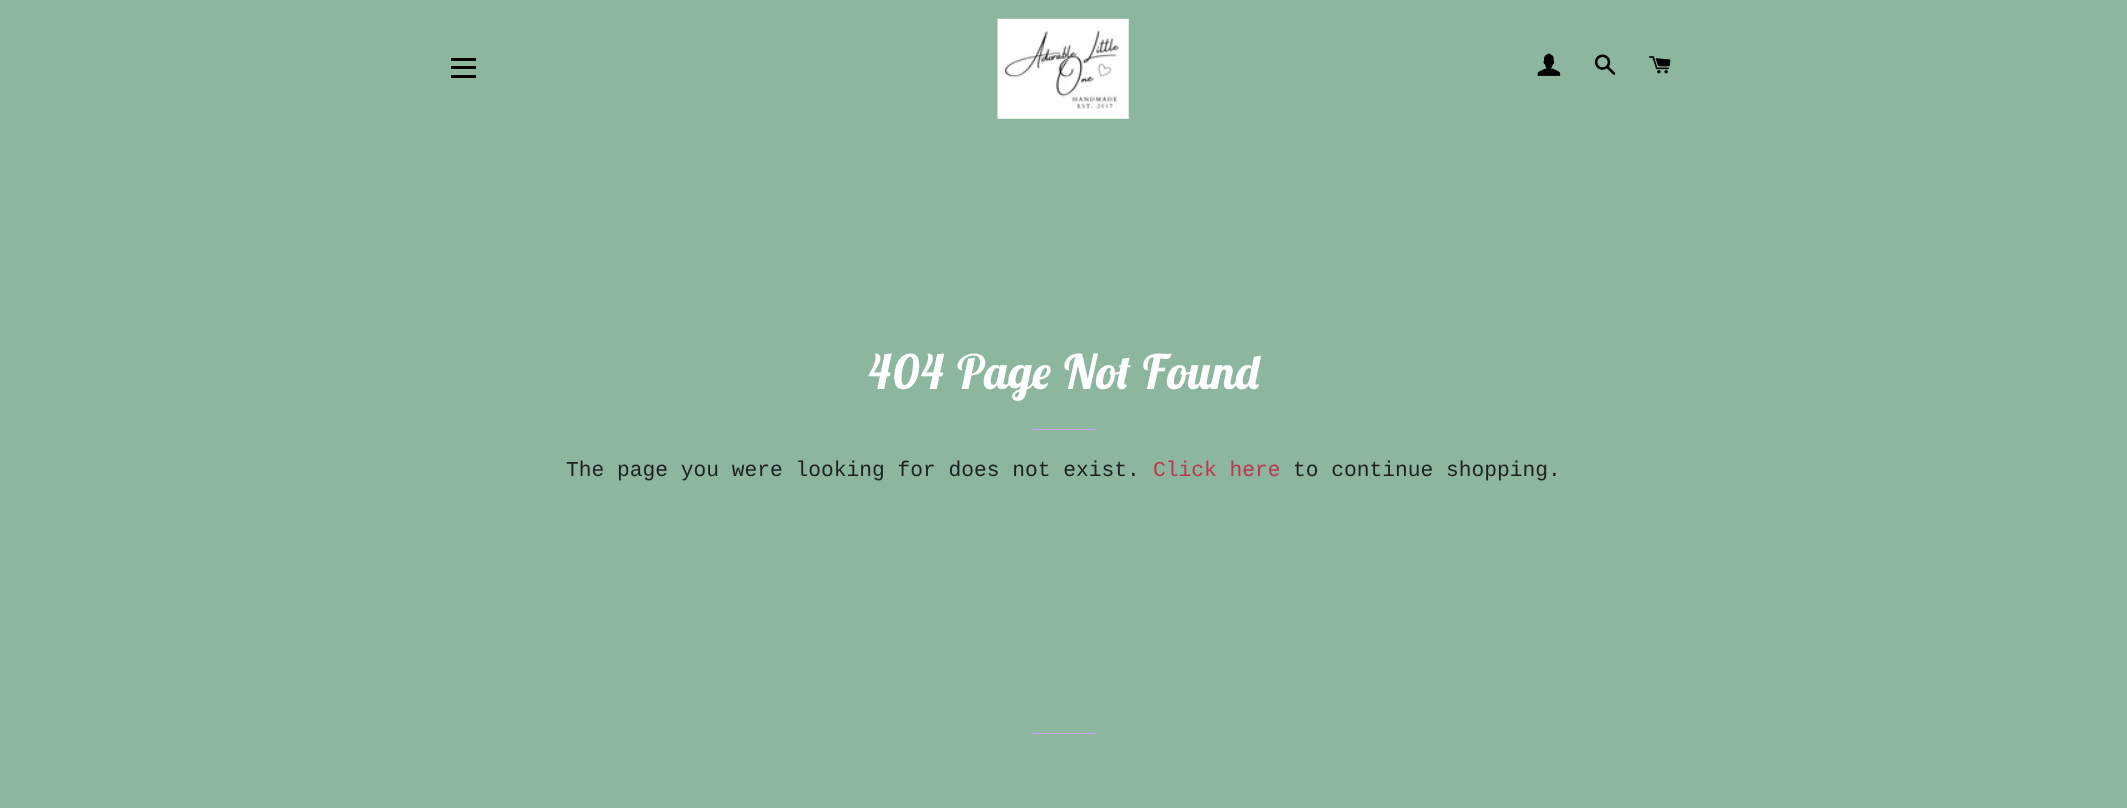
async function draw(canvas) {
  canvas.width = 2127;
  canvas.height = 808;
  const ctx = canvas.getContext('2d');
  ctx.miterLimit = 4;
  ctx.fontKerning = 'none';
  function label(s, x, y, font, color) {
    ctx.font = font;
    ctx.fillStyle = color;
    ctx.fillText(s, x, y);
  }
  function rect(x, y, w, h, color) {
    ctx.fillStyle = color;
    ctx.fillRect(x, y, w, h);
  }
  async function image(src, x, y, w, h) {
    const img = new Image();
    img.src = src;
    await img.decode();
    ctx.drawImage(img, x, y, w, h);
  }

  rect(0, 0, 2127, 808, '#8cb69d');
  rect(451, 58, 25, 3, '#000');
  rect(451, 66, 25, 3, '#000');
  rect(451, 75, 25, 3, '#000');
  await image('assets/img1.png', 997, 18, 132, 101);
  await image('assets/img2.png', 1537, 53, 24, 23);
  await image('assets/img3.png', 1594, 54, 22, 21);
  await image('assets/img4.png', 1649, 56, 22, 18);
  label('404 Page Not Found', 868, 389, 'italic bold 47.5px Lobster Two', '#fff');
  rect(1033, 429, 62, 1, '#c9a3ff');
  label('The page you were looking for does not exist.', 566, 476, '21.25px Liberation Mono', '#1f2021');
  label('Click here', 1153, 476, '21.25px Liberation Mono', '#bd374f');
  label('to continue shopping.', 1293, 476, '21.25px Liberation Mono', '#1f2021');
  rect(1033, 733, 62, 1, '#c9a3ff');
}

draw(document.querySelector('canvas'));
